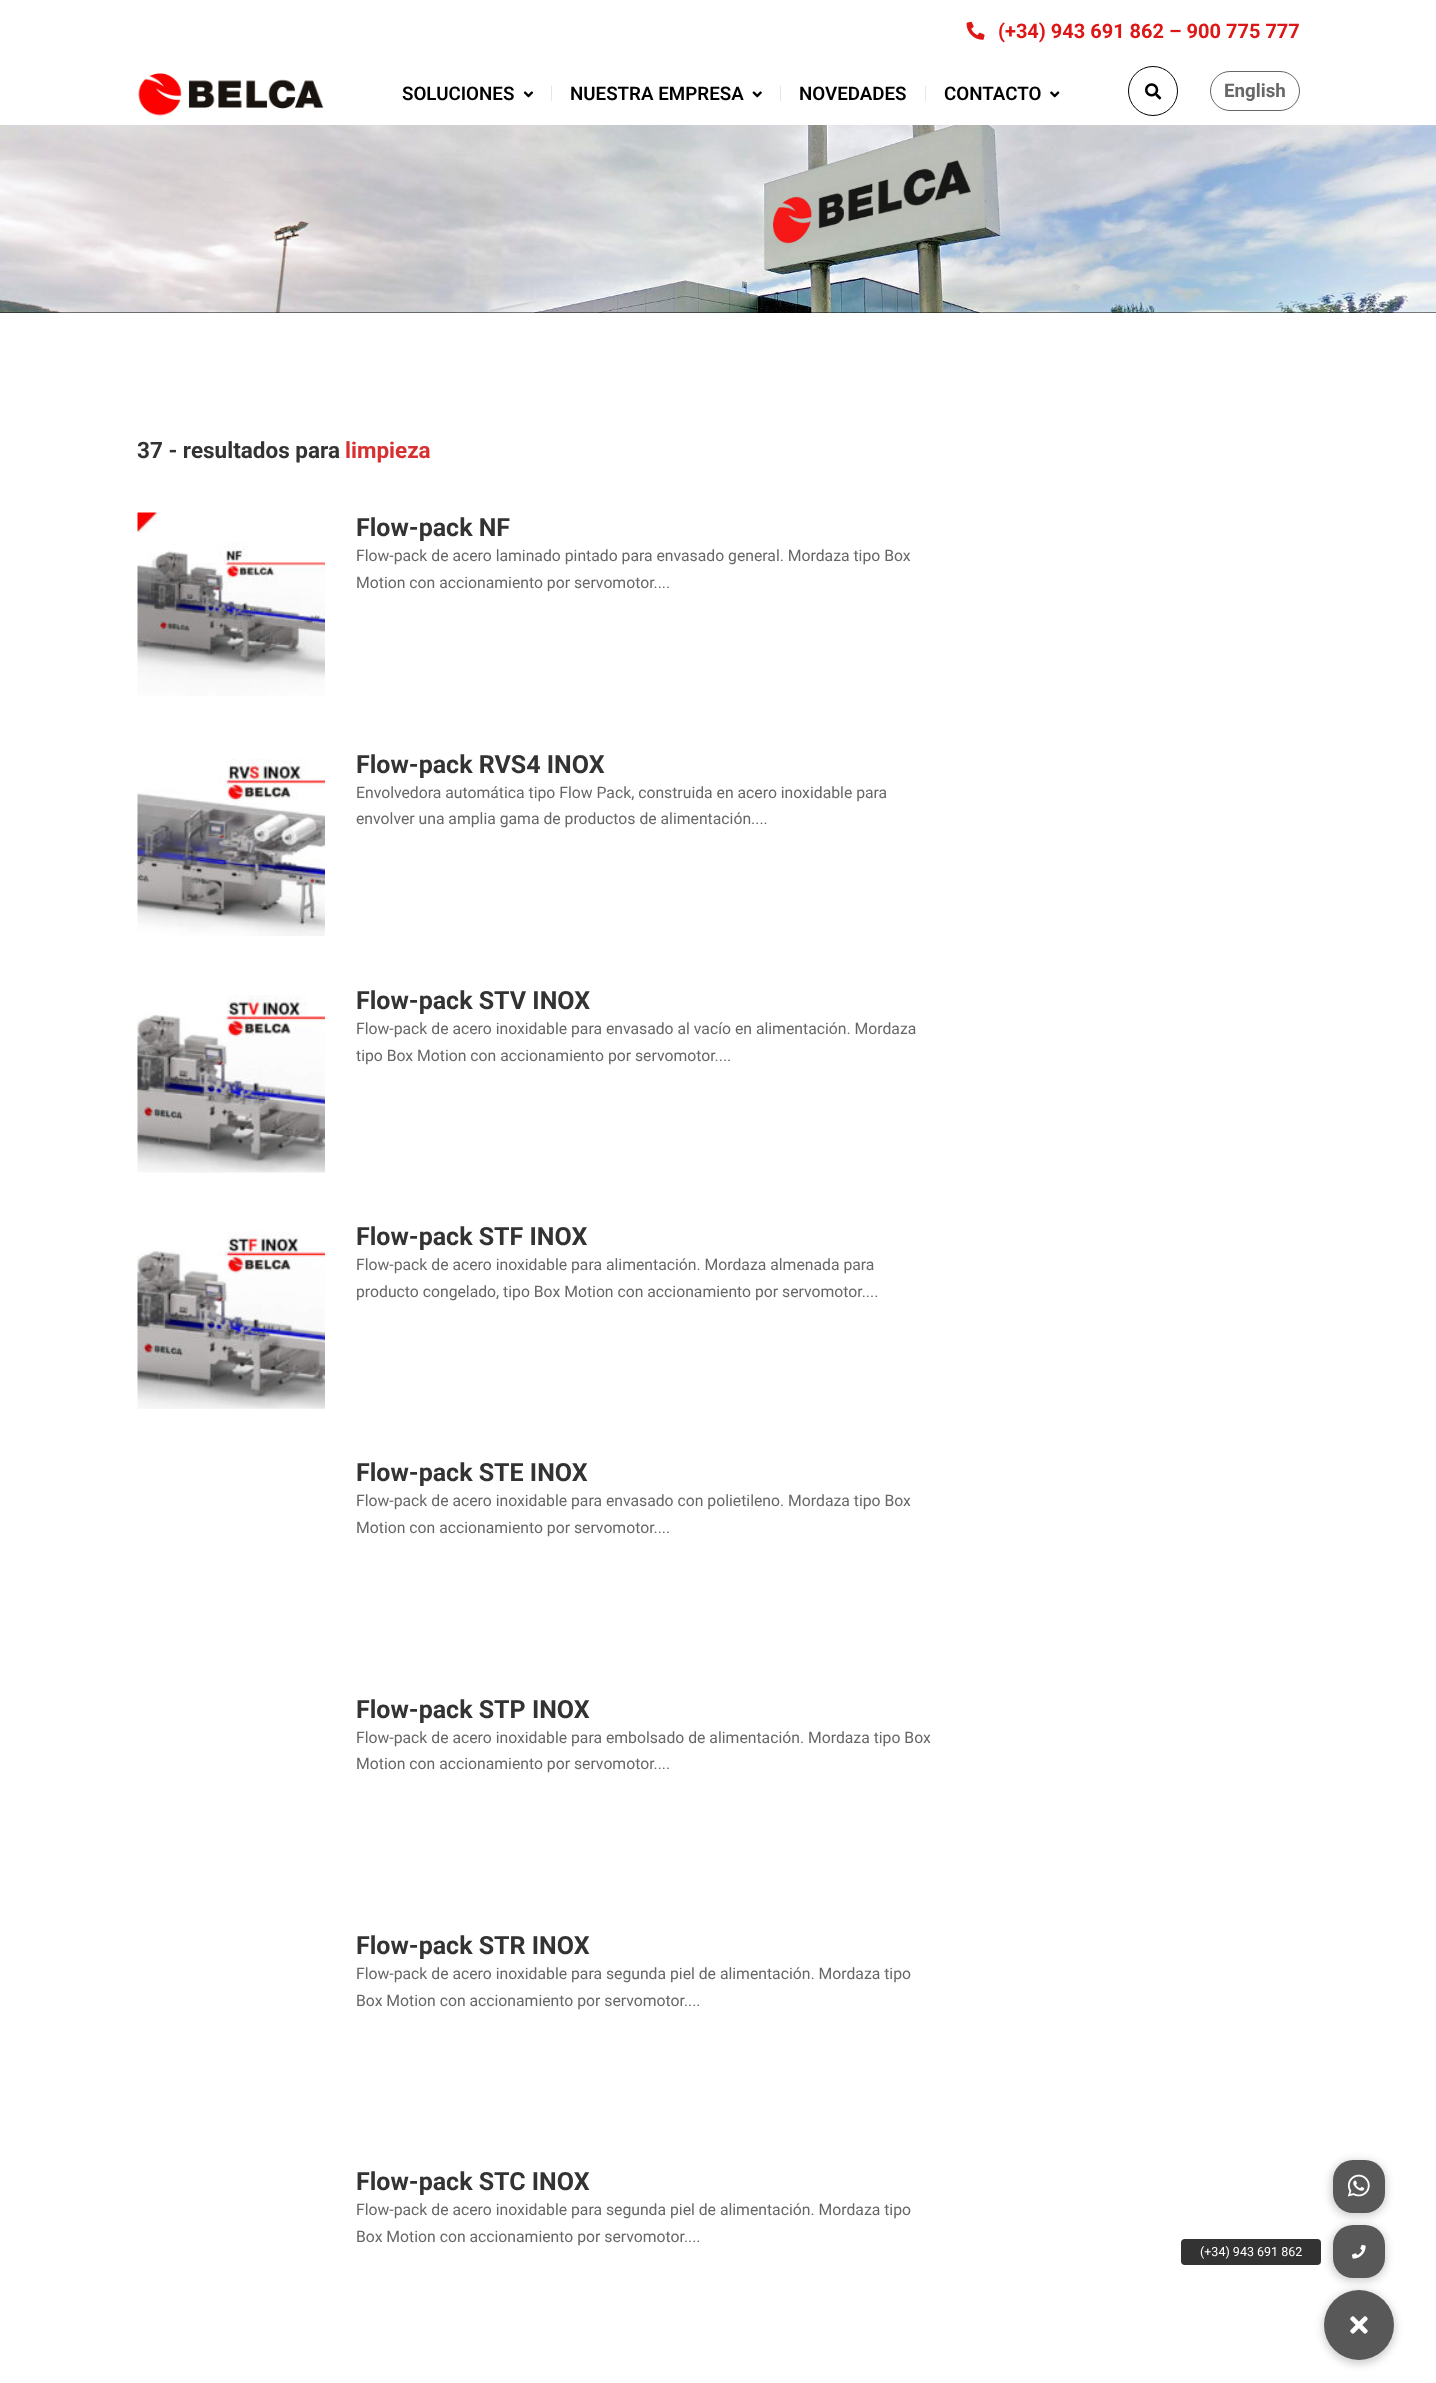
async function draw(canvas) {
  canvas.width = 1436;
  canvas.height = 2383;
  const ctx = canvas.getContext('2d');
  ctx.miterLimit = 4;
  ctx.fontKerning = 'normal';
  function label(s, x, y, font, color) {
    ctx.font = font;
    ctx.fillStyle = color;
    ctx.fillText(s, x, y);
  }
  function rect(x, y, w, h, color) {
    ctx.fillStyle = color;
    ctx.fillRect(x, y, w, h);
  }
  function roundedRect(x, y, w, h, r, color) {
    ctx.fillStyle = color;
    ctx.beginPath();
    ctx.roundRect(x, y, w, h, r);
    ctx.fill();
  }
  async function image(src, x, y, w, h) {
    const img = new Image();
    img.src = src;
    await img.decode();
    ctx.drawImage(img, x, y, w, h);
  }

  rect(0, 0, 1436, 2383, '#fff');
  await image('assets/img1.png', 966, 21, 19, 19);
  label('(+34) 943 691 862 – 900 775 777', 998, 38, 'bold 20px Roboto', '#dd1616');
  await image('assets/img2.png', 138, 73, 186, 43);
  label('SOLUCIONES', 402, 100, '600 18.75px Roboto', '#000');
  await image('assets/img3.png', 523, 91, 11, 7);
  rect(551, 86, 1, 15, '#e6e6e6');
  label('NUESTRA EMPRESA', 570, 100, '600 18.75px Roboto', '#000');
  await image('assets/img4.png', 752, 91, 10, 7);
  rect(780, 86, 1, 15, '#e6e6e6');
  label('NOVEDADES', 799, 100, '600 18.75px Roboto', '#000');
  rect(925, 86, 1, 15, '#e6e6e6');
  label('CONTACTO', 944, 100, '600 18.75px Roboto', '#000');
  await image('assets/img5.png', 1050, 91, 10, 7);
  ctx.beginPath();
  ctx.arc(1153, 91, 24.5, 0, 2 * Math.PI);
  ctx.strokeStyle = '#000';
  ctx.stroke();
  await image('assets/img6.png', 1145, 83, 17, 17);
  ctx.beginPath();
  ctx.roundRect(1210.5, 71.5, 89, 39, 19.5);
  ctx.strokeStyle = '#666';
  ctx.stroke();
  label('English', 1224, 97, 'bold 18.75px Roboto', '#676767');
  rect(0, 312, 1436, 1, '#000');
  await image('assets/img7.png', 0, 125, 1436, 188);
  label('37 - resultados para', 137, 458, 'bold 22.5px Roboto', '#333');
  label('limpieza', 345, 458, 'bold 22.5px Roboto', '#d83030');
  await image('assets/img8.png', 137, 512, 188, 184);
  label('Flow-pack NF', 356, 536, 'bold 25px Roboto', '#333');
  label('Flow-pack de acero laminado pintado para envasado general. Mordaza tipo Box', 356, 561, '15.75px Roboto', '#676767');
  label('Motion con accionamiento por servomotor....', 356, 588, '15.75px Roboto', '#676767');
  await image('assets/img9.png', 137, 759, 188, 177);
  label('Flow-pack RVS4 INOX', 356, 773, 'bold 25px Roboto', '#333');
  label('Envolvedora automática tipo Flow Pack, construida en acero inoxidable para', 356, 798, '15.75px Roboto', '#676767');
  label('envolver una amplia gama de productos de alimentación....', 356, 824, '15.75px Roboto', '#676767');
  await image('assets/img10.png', 137, 995, 188, 178);
  label('Flow-pack STV INOX', 356, 1009, 'bold 25px Roboto', '#333');
  label('Flow-pack de acero inoxidable para envasado al vacío en alimentación. Mordaza', 356, 1034, '15.75px Roboto', '#676767');
  label('tipo Box Motion con accionamiento por servomotor....', 356, 1061, '15.75px Roboto', '#676767');
  await image('assets/img11.png', 137, 1231, 188, 178);
  label('Flow-pack STF INOX', 356, 1245, 'bold 25px Roboto', '#333');
  label('Flow-pack de acero inoxidable para alimentación. Mordaza almenada para', 356, 1270, '15.75px Roboto', '#676767');
  label('producto congelado, tipo Box Motion con accionamiento por servomotor....', 356, 1297, '15.75px Roboto', '#676767');
  label('Flow-pack STE INOX', 356, 1481, 'bold 25px Roboto', '#333');
  label('Flow-pack de acero inoxidable para envasado con polietileno. Mordaza tipo Box', 356, 1506, '15.75px Roboto', '#676767');
  label('Motion con accionamiento por servomotor....', 356, 1533, '15.75px Roboto', '#676767');
  label('Flow-pack STP INOX', 356, 1718, 'bold 25px Roboto', '#333');
  label('Flow-pack de acero inoxidable para embolsado de alimentación. Mordaza tipo Box', 356, 1743, '15.75px Roboto', '#676767');
  label('Motion con accionamiento por servomotor....', 356, 1769, '15.75px Roboto', '#676767');
  label('Flow-pack STR INOX', 356, 1954, 'bold 25px Roboto', '#333');
  label('Flow-pack de acero inoxidable para segunda piel de alimentación. Mordaza tipo', 356, 1979, '15.75px Roboto', '#676767');
  label('Box Motion con accionamiento por servomotor....', 356, 2006, '15.75px Roboto', '#676767');
  label('Flow-pack STC INOX', 356, 2190, 'bold 25px Roboto', '#333');
  label('Flow-pack de acero inoxidable para segunda piel de alimentación. Mordaza tipo', 356, 2215, '15.75px Roboto', '#676767');
  label('Box Motion con accionamiento por servomotor....', 356, 2242, '15.75px Roboto', '#676767');
  ctx.fillStyle = '#00000033';
  ctx.filter = 'blur(4px)';
  ctx.beginPath();
  ctx.roundRect(1331, 2226, 55, 55, 21);
  ctx.fill();
  ctx.filter = 'none';
  roundedRect(1333, 2225, 52, 53, 20, '#585858');
  ctx.fillStyle = '#00000033';
  ctx.filter = 'blur(4px)';
  ctx.beginPath();
  ctx.roundRect(1331, 2161, 55, 55, 21);
  ctx.fill();
  ctx.filter = 'none';
  roundedRect(1333, 2160, 52, 53, 20, '#585858');
  await image('assets/img12.png', 1347, 2174, 23, 23);
  roundedRect(1181, 2239, 140, 26, 4, '#333');
  label('(+34) 943 691 862', 1200, 2256, '12.5px Roboto', '#fff');
  await image('assets/img13.png', 1351, 2244, 15, 15);
  ctx.fillStyle = '#00000033';
  ctx.filter = 'blur(4px)';
  ctx.beginPath();
  ctx.roundRect(1323, 2291, 72, 73, 36);
  ctx.fill();
  ctx.filter = 'none';
  ctx.fillStyle = '#585858';
  ctx.beginPath();
  ctx.arc(1359, 2325, 35, 0, 2 * Math.PI);
  ctx.fill();
  await image('assets/img14.png', 1350, 2316, 18, 18);
}

draw(document.querySelector('canvas'));
